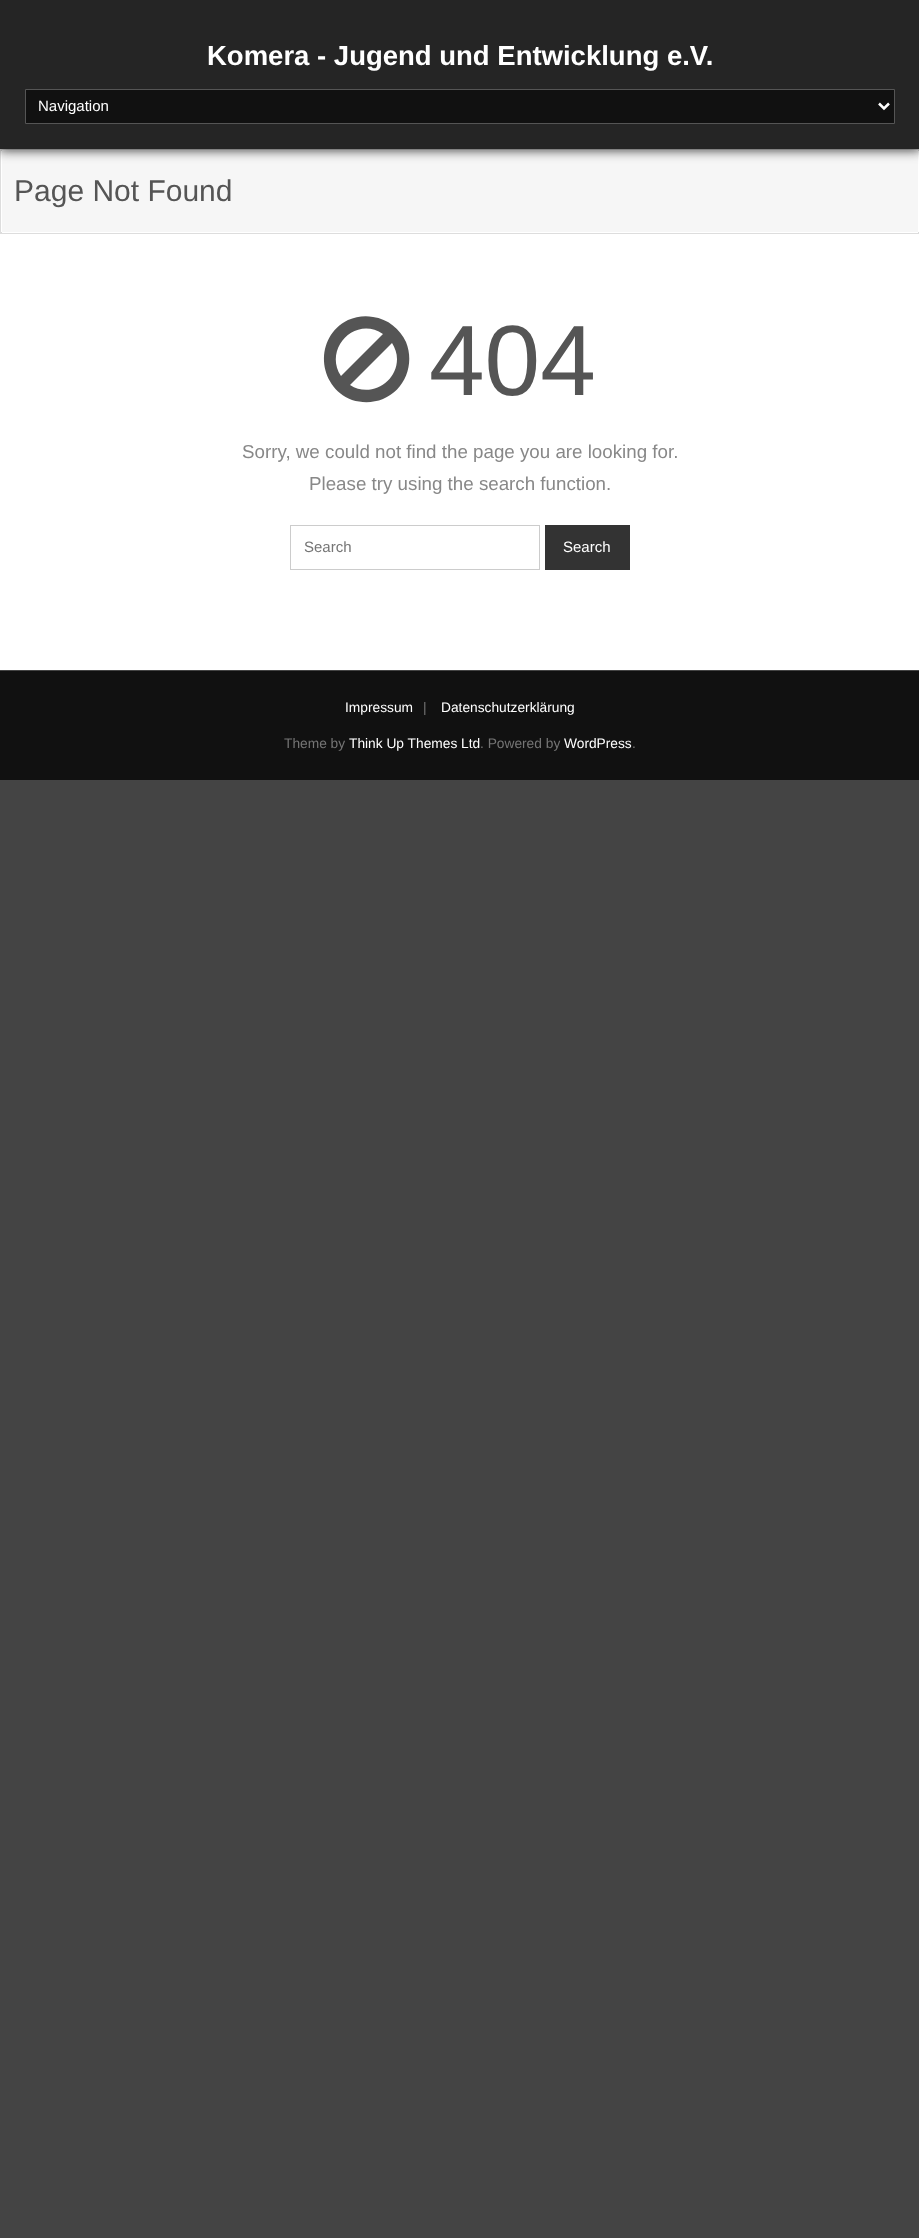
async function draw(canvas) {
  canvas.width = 919;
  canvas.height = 2238;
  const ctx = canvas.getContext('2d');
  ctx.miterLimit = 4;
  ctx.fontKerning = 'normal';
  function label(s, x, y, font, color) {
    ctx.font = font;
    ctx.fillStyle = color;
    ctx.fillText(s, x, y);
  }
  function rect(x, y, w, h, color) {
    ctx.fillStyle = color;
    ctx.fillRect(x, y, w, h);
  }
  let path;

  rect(0, 0, 919, 2238, '#444');
  rect(0, 234, 919, 436, '#fff');
  ctx.fillStyle = '#f6f6f6';
  ctx.beginPath();
  ctx.rect(1.5, 150.5, 917, 82);
  ctx.fill();
  ctx.strokeStyle = '#fff';
  ctx.stroke();
  ctx.strokeStyle = '#ddd';
  ctx.strokeRect(0.5, 149.5, 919, 84);
  ctx.fillStyle = '#333';
  ctx.filter = 'blur(6px)';
  ctx.beginPath();
  ctx.rect(-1, -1, 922, 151);
  ctx.fill();
  ctx.filter = 'none';
  rect(0, 0, 919, 149, '#252525');
  label('Komera - Jugend und Entwicklung e.V.', 207, 65, 'bold 27.5px Liberation Sans', '#fff');
  ctx.fillStyle = '#111';
  ctx.beginPath();
  ctx.rect(25.5, 89.5, 869, 34);
  ctx.fill();
  ctx.strokeStyle = '#555';
  ctx.stroke();
  path = new Path2D('M879 103.5L884 108.5L889 103.5');
  ctx.strokeStyle = '#fff';
  ctx.lineWidth = 2.5;
  ctx.stroke(path);
  label('Navigation', 38, 111, '15px Liberation Sans', '#fff');
  label('Page Not Found', 14, 201, '30px Liberation Sans', '#555');
  path = new Path2D('M397 359C397 353 395 348 392 343L350 385C370 398 397 383 397 359ZM341 376L383 334C356 315 323 348 341 376ZM406 342C415 364 405 390 383 399C373 403 362 403 352 400C317 386 314 337 348 320C356 317 364 315 373 317C388 319 400 329 406 342Z');
  ctx.fill(path);
  label('404', 429, 395, '100px Liberation Sans', '#555');
  label('Sorry, we could not find the page you are looking for.', 242, 458, '18.75px Liberation Sans', '#888');
  label('Please try using the search function.', 309, 490, '18.75px Liberation Sans', '#888');
  ctx.strokeStyle = '#ccc';
  ctx.lineWidth = 1;
  ctx.strokeRect(290.5, 525.5, 249, 44);
  label('Search', 304, 552, '15px Liberation Sans', '#757575');
  rect(545, 525, 85, 45, '#333');
  label('Search', 563, 552, '15px Liberation Sans', '#fff');
  rect(0, 671, 919, 109, '#111');
  label('Impressum', 345, 712, '13.75px Liberation Sans', '#fff');
  label('|', 423, 712, '13.75px Liberation Sans', '#757575');
  label('Datenschutzerklärung', 441, 712, '13.75px Liberation Sans', '#fff');
  label('Theme by', 284, 748, '13.75px Liberation Sans', '#757575');
  label('Think Up Themes Ltd', 349, 748, '13.75px Liberation Sans', '#fff');
  label('. Powered by', 480, 748, '13.75px Liberation Sans', '#757575');
  label('WordPress', 564, 748, '13.75px Liberation Sans', '#fff');
  label('.', 632, 748, '13.75px Liberation Sans', '#757575');
}

draw(document.querySelector('canvas'));
